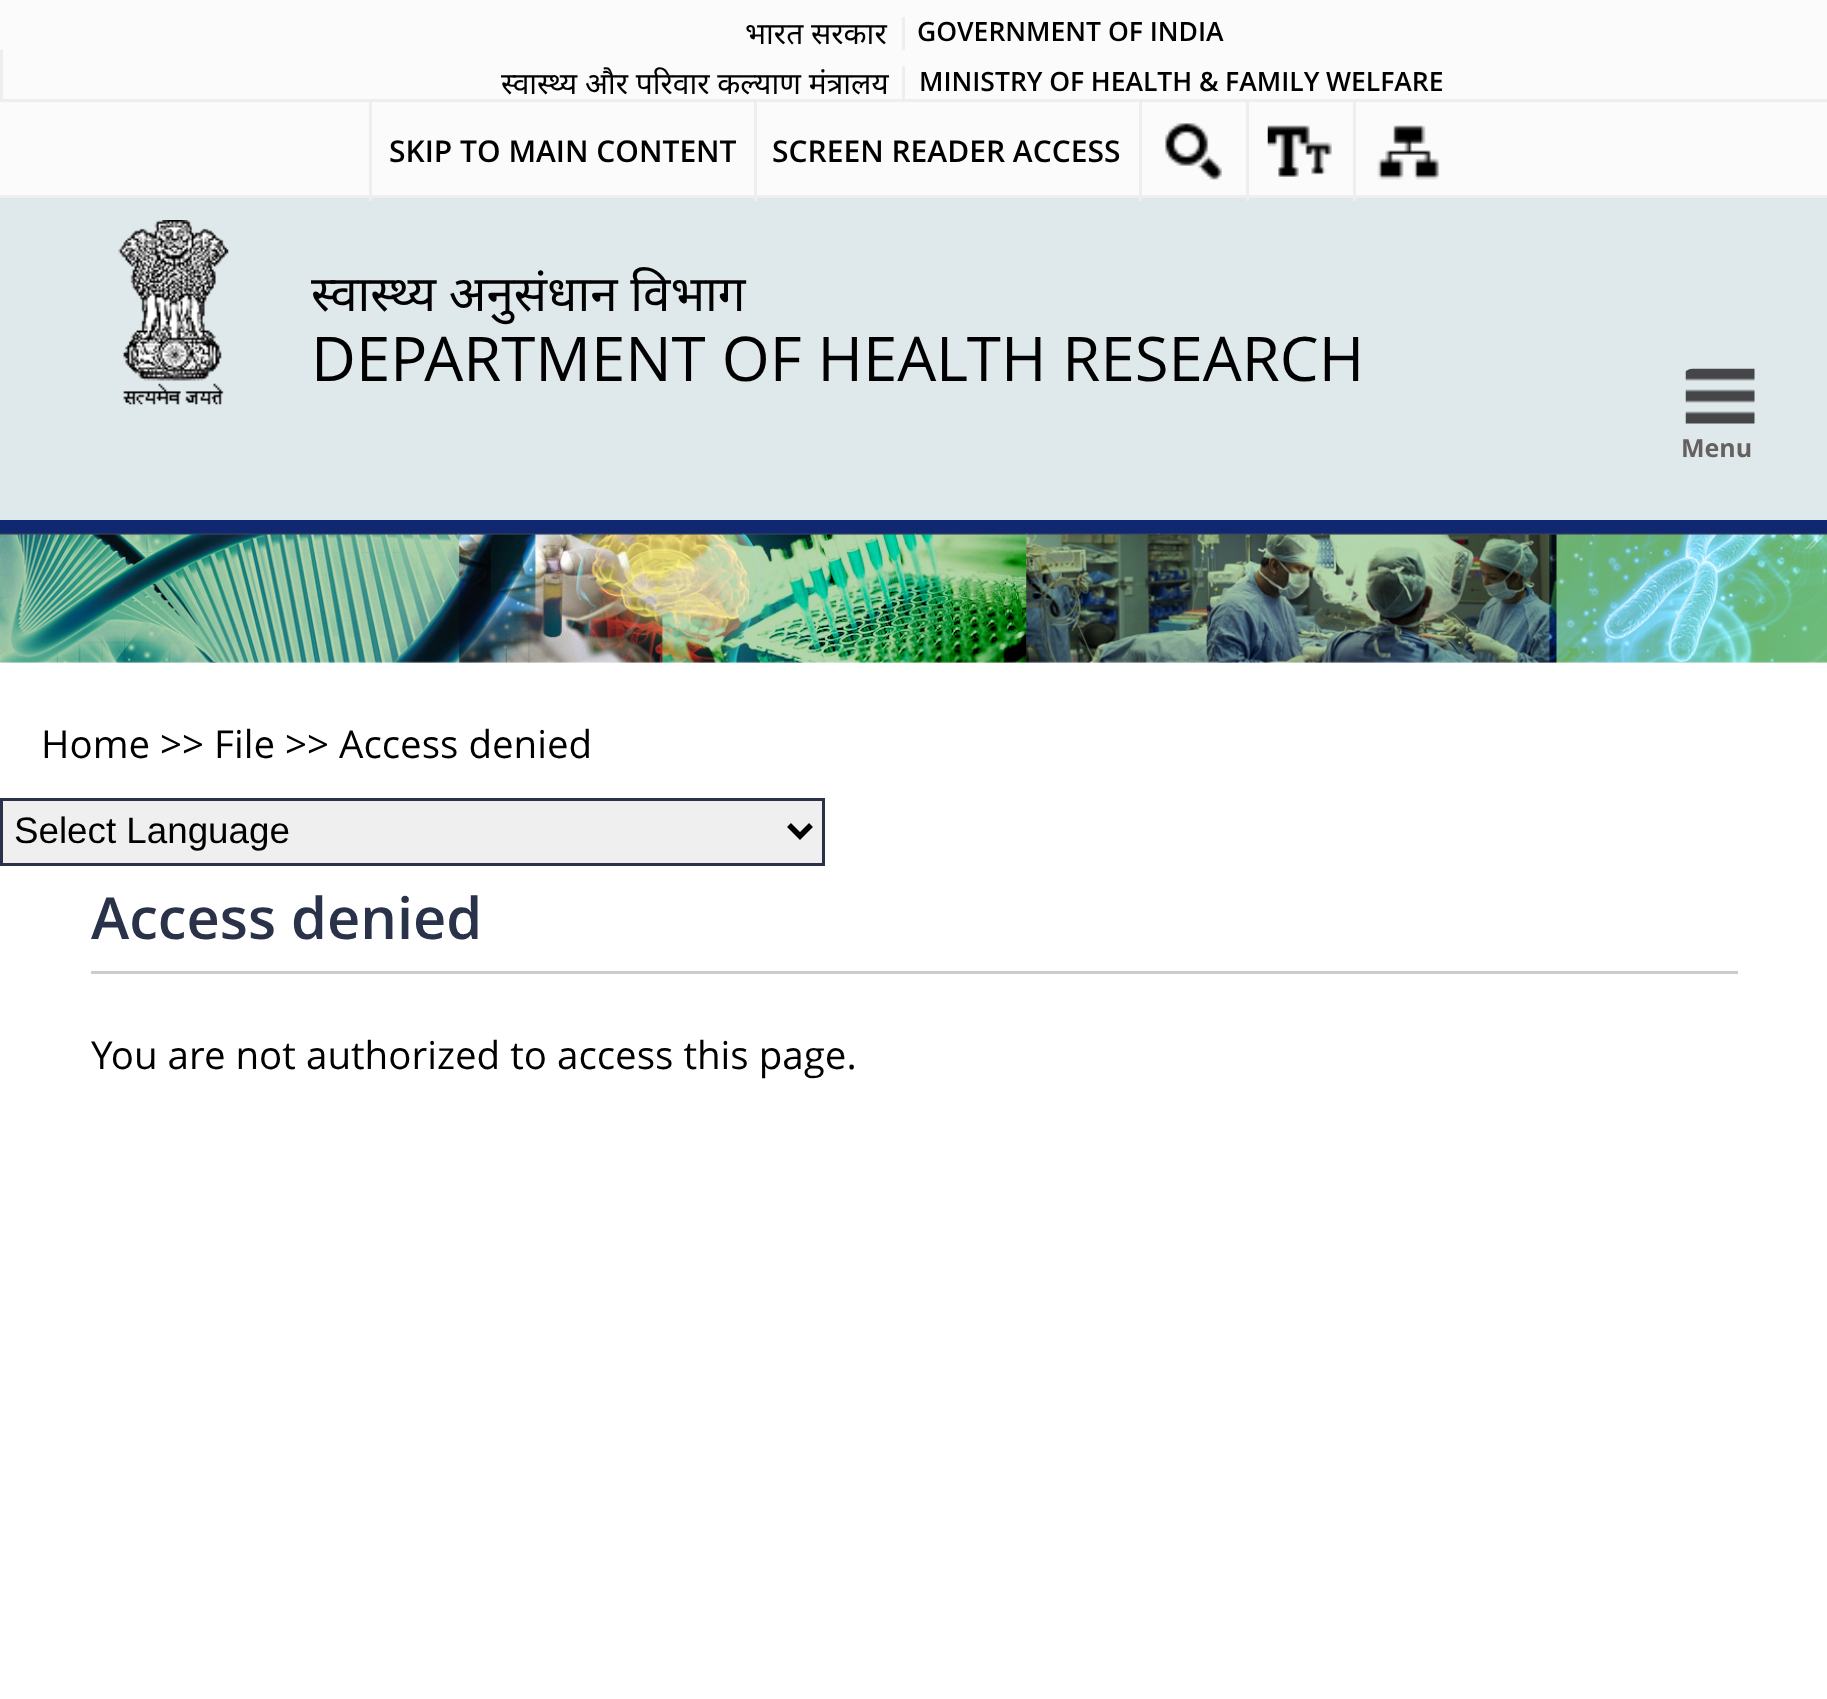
async function draw(canvas) {
  canvas.width = 1827;
  canvas.height = 1699;
  const ctx = canvas.getContext('2d');
  ctx.miterLimit = 4;
  ctx.fontKerning = 'normal';
  function label(s, x, y, font, color) {
    ctx.font = font;
    ctx.fillStyle = color;
    ctx.fillText(s, x, y);
  }
  function rect(x, y, w, h, color) {
    ctx.fillStyle = color;
    ctx.fillRect(x, y, w, h);
  }
  async function image(src, x, y, w, h) {
    const img = new Image();
    img.src = src;
    await img.decode();
    ctx.drawImage(img, x, y, w, h);
  }
  let path;

  rect(0, 0, 1827, 1699, '#fff');
  rect(0, 0, 1827, 195, '#fbfbfb');
  rect(0, 195, 1827, 3, '#eee');
  rect(902, 17, 3, 33, '#eee');
  label('भारत सरकार', 745, 44, '30px Noto Sans', '#000');
  label('GOVERNMENT OF INDIA', 917, 41, '600 26.5px Open Sans', '#000');
  rect(0, 50, 3, 49, '#eee');
  rect(902, 66, 3, 33, '#eee');
  label('स्वास्थ्य और परिवार कल्याण मंत्रालय', 501, 94, '30px Noto Sans', '#000');
  ctx.wordSpacing = '-0.25px';
  label('MINISTRY OF HEALTH & FAMILY WELFARE', 919, 91, '600 26.5px Open Sans', '#000');
  rect(0, 99, 1827, 3, '#eee');
  rect(0, 198, 1827, 322, '#dfe8eb');
  rect(369, 102, 3, 99, '#eee');
  ctx.wordSpacing = '0px';
  label('SKIP TO MAIN CONTENT', 389, 162, '600 30px Open Sans', '#000');
  rect(754, 102, 3, 99, '#eee');
  label('SCREEN READER ACCESS', 772, 162, '600 30px Open Sans', '#000');
  rect(1139, 102, 3, 99, '#eee');
  await image('assets/img1.png', 1165, 123, 57, 57);
  rect(1246, 102, 3, 99, '#eee');
  await image('assets/img2.png', 1267, 125, 65, 52);
  rect(1353, 102, 3, 99, '#eee');
  await image('assets/img3.png', 1377, 125, 63, 55);
  await image('assets/img4.png', 118, 220, 111, 185);
  label('स्वास्थ्य अनुसंधान विभाग', 311, 311, '49.25px Noto Sans', '#000');
  label('DEPARTMENT OF HEALTH RESEARCH', 311, 381, '61.6px Open Sans', '#000');
  rect(0, 520, 1827, 14, '#102870');
  await image('assets/img5.png', 1685, 368, 70, 56);
  label('Menu', 1681, 457, 'bold 25px Open Sans', '#656161');
  await image('assets/img6.png', 0, 533, 1827, 130);
  label('Home >> File >> Access denied', 41, 758, '38.5px Open Sans', '#000');
  ctx.fillStyle = '#efefef';
  ctx.beginPath();
  ctx.rect(1.5, 799.5, 822, 65);
  ctx.fill();
  ctx.strokeStyle = '#2a324a';
  ctx.lineWidth = 3;
  ctx.stroke();
  path = new Path2D('M789 825L800 836L811 825');
  ctx.strokeStyle = '#000';
  ctx.lineWidth = 5.5;
  ctx.stroke(path);
  label('Select Language', 14, 843, '36.75px Liberation Sans', '#000');
  rect(91, 971, 1647, 3, '#ccc');
  label('Access denied', 91, 939, '600 57.75px Open Sans', '#2a324a');
  label('You are not authorized to access this page.', 91, 1069, '38.5px Open Sans', '#000');
}

draw(document.querySelector('canvas'));
